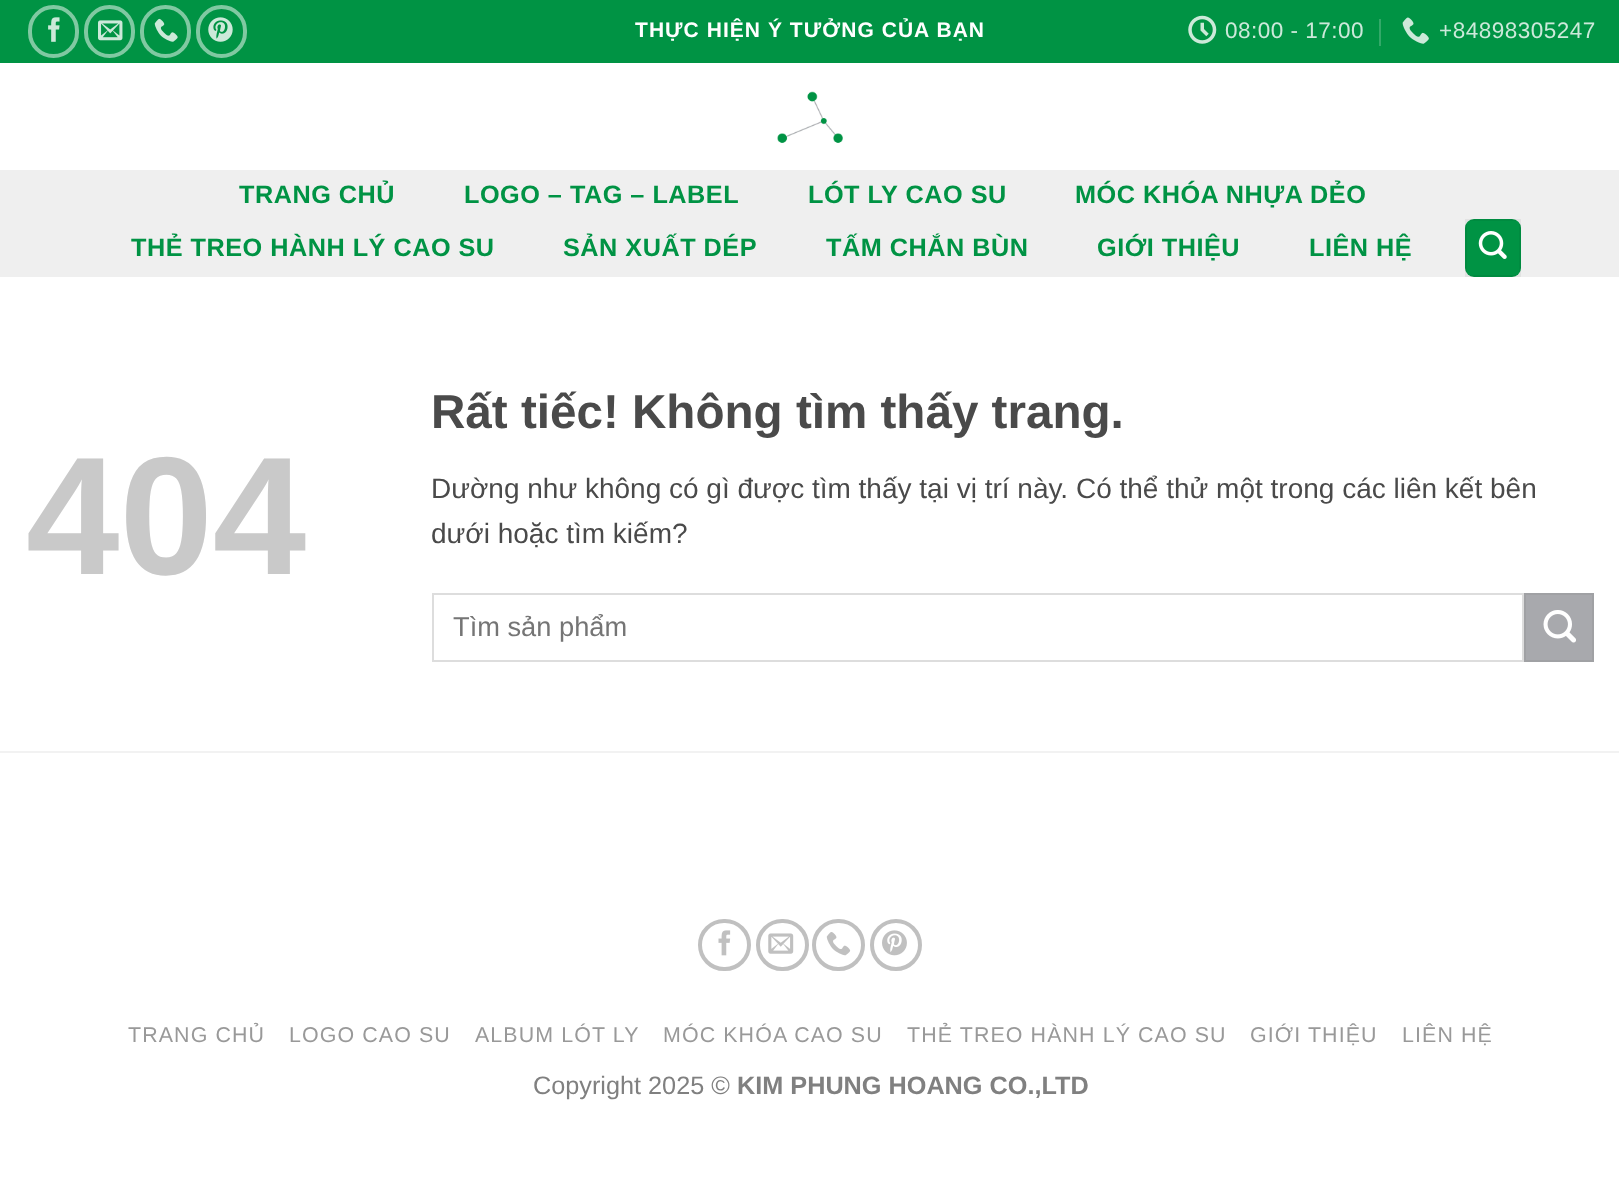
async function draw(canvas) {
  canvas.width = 1619;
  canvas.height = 1189;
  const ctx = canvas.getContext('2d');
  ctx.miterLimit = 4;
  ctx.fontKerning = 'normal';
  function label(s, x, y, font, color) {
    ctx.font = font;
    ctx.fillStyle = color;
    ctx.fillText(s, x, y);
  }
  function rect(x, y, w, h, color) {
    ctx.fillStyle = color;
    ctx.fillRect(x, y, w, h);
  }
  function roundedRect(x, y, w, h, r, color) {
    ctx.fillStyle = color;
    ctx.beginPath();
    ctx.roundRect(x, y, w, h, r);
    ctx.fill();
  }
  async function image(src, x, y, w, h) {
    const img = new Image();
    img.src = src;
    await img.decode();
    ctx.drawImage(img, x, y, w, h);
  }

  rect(0, 0, 1619, 1189, '#fff');
  rect(0, 0, 1619, 63, '#009344');
  ctx.beginPath();
  ctx.roundRect(30, 7, 47, 49, 23.5);
  ctx.strokeStyle = '#80c9a2';
  ctx.lineWidth = 4;
  ctx.stroke();
  await image('assets/img1.png', 48, 17, 12, 25);
  ctx.beginPath();
  ctx.roundRect(86, 7, 47, 49, 23.5);
  ctx.stroke();
  await image('assets/img2.png', 98, 20, 25, 21);
  ctx.beginPath();
  ctx.roundRect(142, 7, 47, 49, 23.5);
  ctx.stroke();
  await image('assets/img3.png', 154, 18, 24, 24);
  ctx.beginPath();
  ctx.roundRect(198, 7, 47, 49, 23.5);
  ctx.stroke();
  await image('assets/img4.png', 208, 17, 25, 25);
  ctx.letterSpacing = '1.05px';
  label('THỰC HIỆN Ý TƯỞNG CỦA BẠN', 635, 37, 'bold 21px Liberation Sans', '#fff');
  await image('assets/img5.png', 1188, 15, 29, 29);
  ctx.letterSpacing = '0.5px';
  label('08:00 - 17:00', 1225, 38, '22.5px Liberation Sans', '#cce9da');
  rect(1379, 19, 2, 27, '#33a969');
  await image('assets/img6.png', 1402, 17, 27, 27);
  label('+84898305247', 1439, 38, '22.5px Liberation Sans', '#cce9da');
  await image('assets/img7.png', 777, 91, 66, 52);
  rect(0, 170, 1619, 107, '#efefef');
  label('TRANG CHỦ', 239, 203, 'bold 25.25px Liberation Sans', '#009344');
  label('LOGO – TAG – LABEL', 464, 203, 'bold 25.25px Liberation Sans', '#009344');
  label('LÓT LY CAO SU', 808, 203, 'bold 25.25px Liberation Sans', '#009344');
  label('MÓC KHÓA NHỰA DẺO', 1075, 203, 'bold 25.25px Liberation Sans', '#009344');
  label('THẺ TREO HÀNH LÝ CAO SU', 131, 256, 'bold 25.25px Liberation Sans', '#009344');
  label('SẢN XUẤT DÉP', 563, 256, 'bold 25.25px Liberation Sans', '#009344');
  label('TẤM CHẮN BÙN', 826, 256, 'bold 25.25px Liberation Sans', '#009344');
  label('GIỚI THIỆU', 1097, 256, 'bold 25.25px Liberation Sans', '#009344');
  label('LIÊN HỆ', 1309, 256, 'bold 25.25px Liberation Sans', '#009344');
  roundedRect(1465, 219, 56, 58, 9, '#009344');
  ctx.strokeStyle = '#0000000d';
  ctx.lineWidth = 2;
  ctx.strokeRect(1466, 220, 54, 56);
  await image('assets/img8.png', 1478, 231, 29, 28);
  ctx.letterSpacing = '0px';
  label('404', 26, 574, 'bold 168px Liberation Sans', '#c9c9c9');
  label('Rất tiếc! Không tìm thấy trang.', 431, 428, 'bold 47.6px Liberation Sans', '#4a4a4a');
  label('Dường như không có gì được tìm thấy tại vị trí này. Có thể thử một trong các liên kết bên', 431, 498, '28px Liberation Sans', '#4a4a4a');
  label('dưới hoặc tìm kiếm?', 431, 543, '28px Liberation Sans', '#4a4a4a');
  ctx.strokeStyle = '#ddd';
  ctx.strokeRect(433, 594, 1090, 67);
  label('Tìm sản phẩm', 453, 636, '27.25px Liberation Sans', '#757575');
  ctx.fillStyle = '#a8a9ad';
  ctx.beginPath();
  ctx.rect(1525, 594, 68, 67);
  ctx.fill();
  ctx.strokeStyle = '#a0a1a4';
  ctx.stroke();
  await image('assets/img9.png', 1543, 610, 33, 33);
  rect(0, 751, 1619, 2, '#f2f2f2');
  ctx.beginPath();
  ctx.roundRect(700, 921, 49, 48, 24);
  ctx.strokeStyle = '#c0c0c0';
  ctx.lineWidth = 4;
  ctx.stroke();
  await image('assets/img10.png', 718, 930, 13, 26);
  ctx.beginPath();
  ctx.roundRect(758, 921, 49, 48, 24);
  ctx.stroke();
  await image('assets/img11.png', 768, 933, 26, 21);
  ctx.beginPath();
  ctx.roundRect(814, 921, 49, 48, 24);
  ctx.stroke();
  await image('assets/img12.png', 826, 932, 25, 24);
  ctx.beginPath();
  ctx.arc(896, 945, 24, 0, 2 * Math.PI);
  ctx.stroke();
  await image('assets/img13.png', 882, 930, 25, 26);
  ctx.letterSpacing = '1.1px';
  label('TRANG CHỦ', 128, 1042, '21.4px Liberation Sans', '#999');
  label('LOGO CAO SU', 289, 1042, '21.4px Liberation Sans', '#999');
  label('ALBUM LÓT LY', 475, 1042, '21.4px Liberation Sans', '#999');
  label('MÓC KHÓA CAO SU', 663, 1042, '21.4px Liberation Sans', '#999');
  label('THẺ TREO HÀNH LÝ CAO SU', 907, 1042, '21.4px Liberation Sans', '#999');
  label('GIỚI THIỆU', 1250, 1042, '21.4px Liberation Sans', '#999');
  label('LIÊN HỆ', 1402, 1042, '21.4px Liberation Sans', '#999');
  ctx.letterSpacing = '0px';
  label('Copyright 2025 ©', 533, 1094, '25.25px Liberation Sans', '#808080');
  label('KIM PHUNG HOANG CO.,LTD', 737, 1094, 'bold 25.25px Liberation Sans', '#808080');
}

draw(document.querySelector('canvas'));
